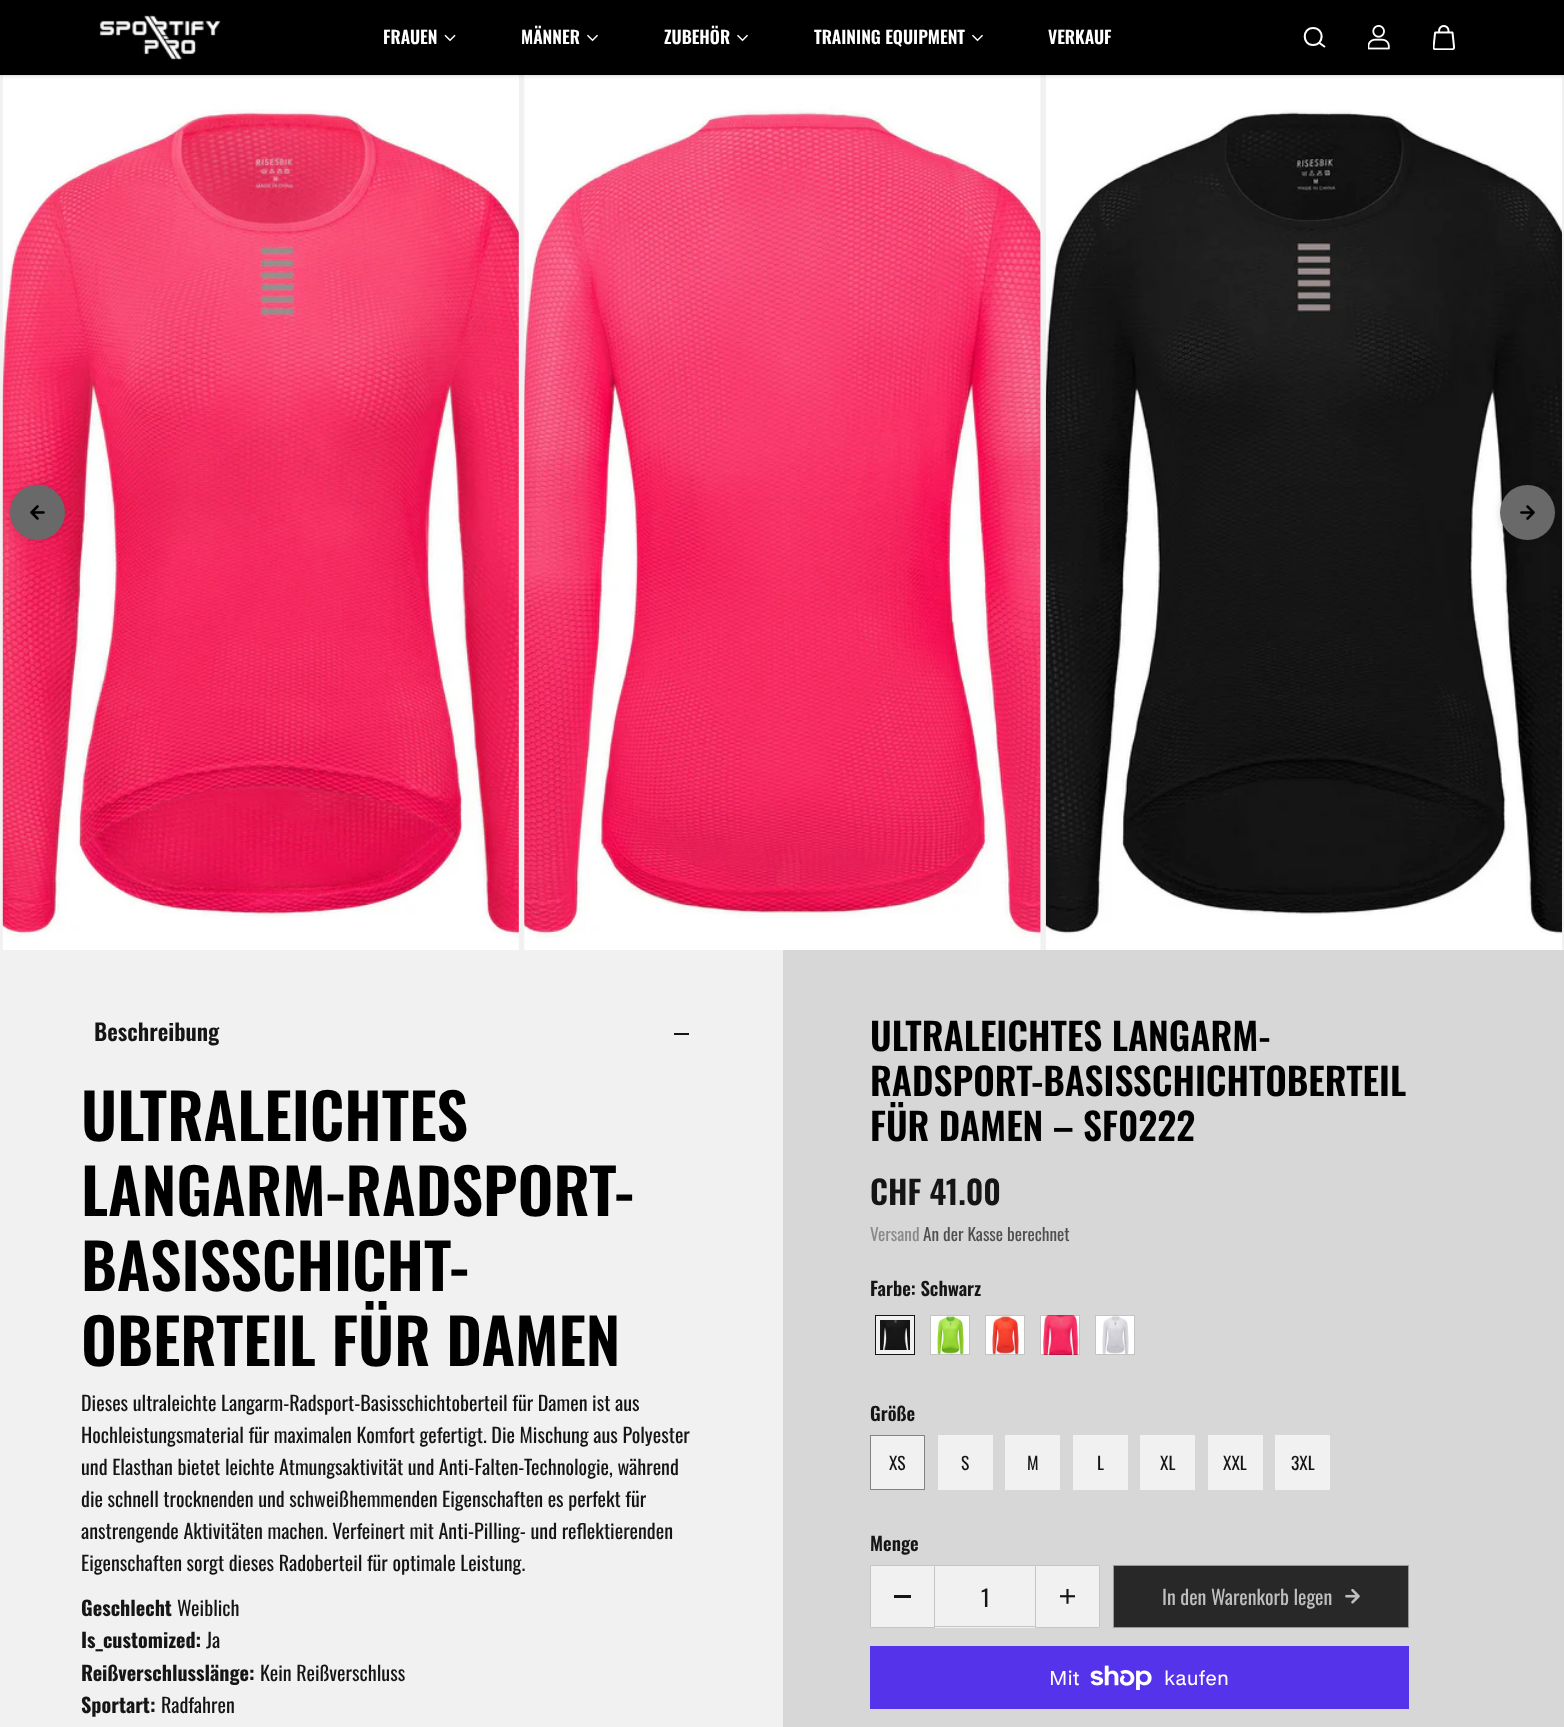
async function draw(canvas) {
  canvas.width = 1564;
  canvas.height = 1727;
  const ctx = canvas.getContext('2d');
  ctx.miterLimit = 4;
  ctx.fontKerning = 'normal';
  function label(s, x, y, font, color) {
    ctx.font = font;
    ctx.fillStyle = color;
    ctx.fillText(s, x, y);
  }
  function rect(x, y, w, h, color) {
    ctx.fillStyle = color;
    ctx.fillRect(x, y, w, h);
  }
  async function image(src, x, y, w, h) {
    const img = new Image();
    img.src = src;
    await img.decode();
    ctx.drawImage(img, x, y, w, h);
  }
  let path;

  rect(0, 0, 1564, 1727, '#f1f1f1');
  await image('assets/img6.png', 2, 75, 517, 875);
  await image('assets/img7.png', 524, 75, 517, 875);
  await image('assets/img8.png', 1045, 75, 517, 875);
  ctx.fillStyle = '#00000036';
  ctx.filter = 'blur(2.5px)';
  ctx.beginPath();
  ctx.rect(0, 0, 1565, 75);
  ctx.fill();
  ctx.filter = 'none';
  rect(0, 0, 1564, 75, '#000');
  await image('assets/img1.png', 99, 15, 122, 45);
  label('FRAUEN', 383, 44, '600 17.5px Oswald', '#fff');
  await image('assets/img2.png', 444, 34, 12, 8);
  label('MÄNNER', 521, 44, '600 17.5px Oswald', '#fff');
  await image('assets/img3.png', 587, 34, 11, 8);
  label('ZUBEHÖR', 664, 44, '600 17.5px Oswald', '#fff');
  await image('assets/img3.png', 737, 34, 11, 8);
  label('TRAINING EQUIPMENT', 814, 44, '600 17.5px Oswald', '#fff');
  await image('assets/img3.png', 972, 34, 11, 8);
  label('VERKAUF', 1048, 44, '600 17.5px Oswald', '#fff');
  path = new Path2D('M1313 45C1324.5 45 1324.5 28 1313 28C1302 28 1302 45 1313 45ZM1319.5 43L1325 47');
  ctx.strokeStyle = '#fff';
  ctx.lineWidth = 2.1;
  ctx.stroke(path);
  await image('assets/img4.png', 1368, 25, 22, 25);
  await image('assets/img5.png', 1433, 25, 22, 25);
  ctx.fillStyle = '#0000001f';
  ctx.filter = 'blur(4px)';
  ctx.beginPath();
  ctx.roundRect(10, 485, 55, 55, 27.5);
  ctx.fill();
  ctx.filter = 'none';
  ctx.fillStyle = '#696969';
  ctx.beginPath();
  ctx.arc(37.5, 512.5, 27.5, 0, 2 * Math.PI);
  ctx.fill();
  await image('assets/img9.png', 30, 505, 15, 15);
  ctx.fillStyle = '#0000001f';
  ctx.filter = 'blur(4px)';
  ctx.beginPath();
  ctx.roundRect(1500, 485, 55, 55, 27.5);
  ctx.fill();
  ctx.filter = 'none';
  ctx.fillStyle = '#696969';
  ctx.beginPath();
  ctx.arc(1527.5, 512.5, 27.5, 0, 2 * Math.PI);
  ctx.fill();
  await image('assets/img10.png', 1520, 505, 15, 15);
  rect(783, 950, 781, 777, '#d7d7d7');
  label('Beschreibung', 94, 1041, '600 23px Oswald', '#151515');
  rect(674, 1033, 15, 2, '#151515');
  label('ULTRALEICHTES', 81, 1141, '600 62.5px Oswald', '#000');
  label('LANGARM-RADSPORT-', 81, 1216, '600 62.5px Oswald', '#000');
  label('BASISSCHICHT-', 81, 1291, '600 62.5px Oswald', '#000');
  label('OBERTEIL FÜR DAMEN', 81, 1366, '600 62.5px Oswald', '#000');
  label('Dieses ultraleichte Langarm-Radsport-Basisschichtoberteil für Damen ist aus', 81, 1411, '20.1px Oswald', '#151515');
  label('Hochleistungsmaterial für maximalen Komfort gefertigt. Die Mischung aus Polyester', 81, 1443, '20.1px Oswald', '#151515');
  label('und Elasthan bietet leichte Atmungsaktivität und Anti-Falten-Technologie, während', 81, 1475, '20.1px Oswald', '#151515');
  label('die schnell trocknenden und schweißhemmenden Eigenschaften es perfekt für', 81, 1507, '20.1px Oswald', '#151515');
  label('anstrengende Aktivitäten machen. Verfeinert mit Anti-Pilling- und reflektierenden', 81, 1539, '20.1px Oswald', '#151515');
  label('Eigenschaften sorgt dieses Radoberteil für optimale Leistung.', 81, 1571, '20.1px Oswald', '#151515');
  label('Geschlecht', 81, 1616, 'bold 20.1px Oswald', '#151515');
  label('Weiblich', 177, 1616, '20.1px Oswald', '#151515');
  label('Is_customized:', 81, 1648, 'bold 20.1px Oswald', '#151515');
  label('Ja', 206, 1648, '20.1px Oswald', '#151515');
  label('Reißverschlusslänge:', 81, 1681, 'bold 20.1px Oswald', '#151515');
  label('Kein Reißverschluss', 260, 1681, '20.1px Oswald', '#151515');
  label('Sportart:', 81, 1713, 'bold 20.1px Oswald', '#151515');
  label('Radfahren', 161, 1713, '20.1px Oswald', '#151515');
  label('ULTRALEICHTES LANGARM-', 870, 1051, '600 37.5px Oswald', '#000');
  label('RADSPORT-BASISSCHICHTOBERTEIL', 870, 1096, '600 37.5px Oswald', '#000');
  label('FÜR DAMEN – SF0222', 870, 1141, '600 37.5px Oswald', '#000');
  label('CHF 41.00', 870, 1205, '600 32.5px Oswald', '#151515');
  label('Versand', 870, 1241, '17.25px Oswald', '#8a8a8a');
  label('An der Kasse berechnet', 923, 1241, '17.25px Oswald', '#4f4f4f');
  label('Farbe: Schwarz', 870, 1296, '600 18.75px Oswald', '#151515');
  await image('assets/img11.png', 880, 1320, 30, 30);
  ctx.strokeStyle = '#f1f1f1';
  ctx.lineWidth = 4;
  ctx.strokeRect(878, 1318, 34, 34);
  ctx.strokeStyle = '#151515';
  ctx.lineWidth = 1;
  ctx.strokeRect(875.5, 1315.5, 39, 39);
  await image('assets/img12.png', 930, 1315, 40, 40);
  ctx.strokeStyle = '#15151540';
  ctx.strokeRect(930.5, 1315.5, 39, 39);
  await image('assets/img13.png', 985, 1315, 40, 40);
  ctx.strokeRect(985.5, 1315.5, 39, 39);
  await image('assets/img14.png', 1040, 1315, 40, 40);
  ctx.strokeRect(1040.5, 1315.5, 39, 39);
  await image('assets/img15.png', 1095, 1315, 40, 40);
  ctx.strokeRect(1095.5, 1315.5, 39, 39);
  label('Größe', 870, 1421, '600 18.75px Oswald', '#151515');
  rect(871, 1436, 53, 53, '#f1f1f1');
  ctx.strokeStyle = '#838383';
  ctx.strokeRect(870.5, 1435.5, 54, 54);
  label('XS', 889, 1470, '17.5px Oswald', '#151515');
  rect(938, 1435, 55, 55, '#f1f1f1');
  label('S', 961, 1470, '17.5px Oswald', '#151515');
  rect(1005, 1435, 55, 55, '#f1f1f1');
  label('M', 1027, 1470, '17.5px Oswald', '#151515');
  rect(1073, 1435, 55, 55, '#f1f1f1');
  label('L', 1097, 1470, '17.5px Oswald', '#151515');
  rect(1140, 1435, 55, 55, '#f1f1f1');
  label('XL', 1160, 1470, '17.5px Oswald', '#151515');
  rect(1208, 1435, 55, 55, '#f1f1f1');
  label('XXL', 1223, 1470, '17.5px Oswald', '#151515');
  rect(1275, 1435, 55, 55, '#f1f1f1');
  label('3XL', 1291, 1470, '17.5px Oswald', '#151515');
  label('Menge', 870, 1551, '600 18.75px Oswald', '#151515');
  ctx.fillStyle = '#f1f1f1';
  ctx.beginPath();
  ctx.rect(870.5, 1565.5, 64, 62);
  ctx.fill();
  ctx.strokeStyle = '#c5c5c5';
  ctx.stroke();
  rect(894, 1595, 17, 3, '#151515');
  rect(935, 1566, 100, 62, '#f1f1f1');
  rect(935, 1565, 100, 1, '#c5c5c5');
  rect(935, 1626, 100, 1, '#c5c5c5');
  label('1', 981, 1607, '23px Oswald', '#151515');
  ctx.fillStyle = '#f1f1f1';
  ctx.beginPath();
  ctx.rect(1035.5, 1565.5, 64, 62);
  ctx.fill();
  ctx.stroke();
  await image('assets/img16.png', 1060, 1589, 15, 15);
  ctx.fillStyle = '#282828';
  ctx.beginPath();
  ctx.rect(1113.5, 1565.5, 295, 62);
  ctx.fill();
  ctx.strokeStyle = '#999797';
  ctx.stroke();
  label('In den Warenkorb legen', 1162, 1605, '20px Oswald', '#bfbfbf');
  await image('assets/img17.png', 1345, 1589, 15, 15);
  rect(870, 1646, 539, 63, '#5433eb');
  label('Mit', 1049, 1685, '20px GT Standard', '#fff');
  await image('assets/img18.png', 1090, 1665, 62, 25);
  label('kaufen', 1164, 1685, '20px GT Standard', '#fff');
}

draw(document.querySelector('canvas'));
